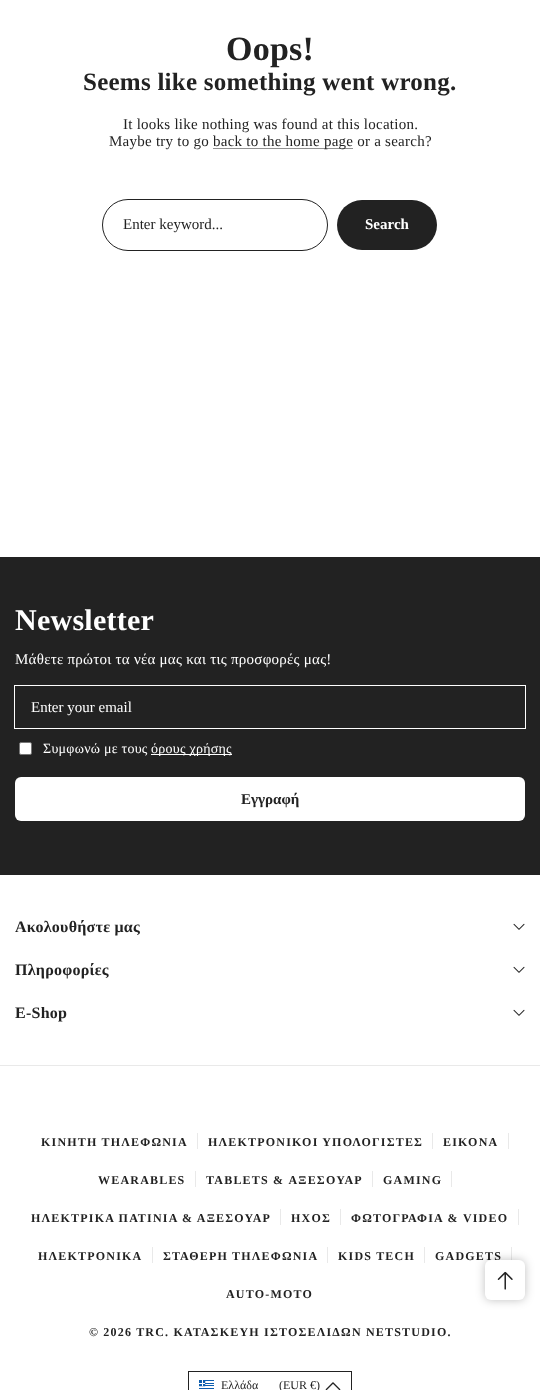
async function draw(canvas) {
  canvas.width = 540;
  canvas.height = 1390;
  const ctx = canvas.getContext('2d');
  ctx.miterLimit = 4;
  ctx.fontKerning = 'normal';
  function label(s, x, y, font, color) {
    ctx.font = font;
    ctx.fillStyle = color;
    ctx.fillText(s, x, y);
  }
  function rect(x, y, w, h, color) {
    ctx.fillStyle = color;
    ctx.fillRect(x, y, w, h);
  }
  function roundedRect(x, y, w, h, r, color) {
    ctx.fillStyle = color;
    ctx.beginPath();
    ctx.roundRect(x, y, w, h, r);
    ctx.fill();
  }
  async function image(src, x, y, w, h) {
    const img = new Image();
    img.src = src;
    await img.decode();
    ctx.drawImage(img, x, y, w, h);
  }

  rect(0, 0, 540, 1390, '#fff');
  ctx.letterSpacing = '0.25px';
  label('Oops!', 226, 60, 'bold 34px Liberation Serif', '#222');
  label('Seems like something went wrong.', 83, 90, 'bold 25px Liberation Serif', '#222');
  label('It looks like nothing was found at this location.', 123, 129, '15px Liberation Serif', '#222');
  label('Maybe try to go', 109, 146, '15px Liberation Serif', '#222');
  rect(213, 148, 140, 1, '#919191');
  label('back to the home page or a search?', 213, 146, '15px Liberation Serif', '#222');
  ctx.beginPath();
  ctx.roundRect(102.5, 199.5, 225, 51, 25.5);
  ctx.strokeStyle = '#222';
  ctx.stroke();
  ctx.letterSpacing = '0px';
  label('Enter keyword...', 123, 229, '15px Liberation Serif', '#222');
  roundedRect(337, 200, 100, 50, 25, '#222');
  label('Search', 365, 229, 'bold 15px Liberation Serif', '#fff');
  rect(0, 557, 540, 318, '#222');
  ctx.letterSpacing = '0.25px';
  label('Newsletter', 15, 630, 'bold 30px Liberation Serif', '#fff');
  label('Μάθετε πρώτοι τα νέα μας και τις προσφορές μας!', 15, 664, '15px Liberation Serif', '#fff');
  ctx.strokeStyle = '#fff';
  ctx.strokeRect(14.5, 685.5, 511, 43);
  ctx.letterSpacing = '0px';
  label('Enter your email', 31, 712, '15px Liberation Serif', '#fff');
  ctx.beginPath();
  ctx.roundRect(19.5, 742.5, 12, 12, 1.5);
  ctx.fill();
  ctx.strokeStyle = '#767676';
  ctx.stroke();
  ctx.letterSpacing = '0.25px';
  label('Συμφωνώ με τους', 43, 753, '14px Liberation Serif', '#fff');
  rect(151, 754, 81, 1, '#fff');
  label('όρους χρήσης', 151, 753, '14px Liberation Serif', '#fff');
  roundedRect(15, 777, 510, 44, 6, '#fff');
  ctx.letterSpacing = '0px';
  label('Εγγραφή', 241, 804, 'bold 15px Liberation Serif', '#222');
  ctx.letterSpacing = '0.25px';
  label('Ακολουθήστε μας', 15, 932, 'bold 16px Liberation Serif', '#222');
  await image('assets/img1.png', 513, 923, 12, 7);
  label('Πληροφορίες', 15, 975, 'bold 16px Liberation Serif', '#222');
  await image('assets/img1.png', 513, 966, 12, 7);
  label('E-Shop', 15, 1018, 'bold 16px Liberation Serif', '#222');
  await image('assets/img1.png', 513, 1009, 12, 7);
  rect(0, 1065, 540, 1, '#e9e9e9');
  ctx.letterSpacing = '1.2px';
  label('ΚΙΝΗΤΗ ΤΗΛΕΦΩΝΙΑ', 41, 1146, 'bold 12px Liberation Serif', '#222');
  rect(197, 1133, 1, 16, '#e9e9e9');
  label('ΗΛΕΚΤΡΟΝΙΚΟΙ ΥΠΟΛΟΓΙΣΤΕΣ', 208, 1146, 'bold 12px Liberation Serif', '#222');
  rect(432, 1133, 1, 16, '#e9e9e9');
  label('ΕΙΚΟΝΑ', 443, 1146, 'bold 12px Liberation Serif', '#222');
  rect(508, 1133, 1, 16, '#e9e9e9');
  label('WEARABLES', 98, 1184, 'bold 12px Liberation Serif', '#222');
  rect(195, 1171, 1, 16, '#e9e9e9');
  label('TABLETS & ΑΞΕΣΟΥΑΡ', 206, 1184, 'bold 12px Liberation Serif', '#222');
  rect(372, 1171, 1, 16, '#e9e9e9');
  label('GAMING', 383, 1184, 'bold 12px Liberation Serif', '#222');
  rect(451, 1171, 1, 16, '#e9e9e9');
  label('ΗΛΕΚΤΡΙΚΑ ΠΑΤΙΝΙΑ & ΑΞΕΣΟΥΑΡ', 31, 1222, 'bold 12px Liberation Serif', '#222');
  rect(280, 1209, 1, 16, '#e9e9e9');
  label('ΗΧΟΣ', 291, 1222, 'bold 12px Liberation Serif', '#222');
  rect(340, 1209, 1, 16, '#e9e9e9');
  label('ΦΩΤΟΓΡΑΦΙΑ & VIDEO', 351, 1222, 'bold 12px Liberation Serif', '#222');
  rect(518, 1209, 1, 16, '#e9e9e9');
  label('ΗΛΕΚΤΡΟΝΙΚΑ', 38, 1260, 'bold 12px Liberation Serif', '#222');
  rect(152, 1247, 1, 16, '#e9e9e9');
  label('ΣΤΑΘΕΡΗ ΤΗΛΕΦΩΝΙΑ', 163, 1260, 'bold 12px Liberation Serif', '#222');
  rect(327, 1247, 1, 16, '#e9e9e9');
  label('KIDS TECH', 338, 1260, 'bold 12px Liberation Serif', '#222');
  rect(424, 1247, 1, 16, '#e9e9e9');
  label('GADGETS', 435, 1260, 'bold 12px Liberation Serif', '#222');
  rect(511, 1247, 1, 16, '#e9e9e9');
  label('AUTO-MOTO', 226, 1298, 'bold 12px Liberation Serif', '#222');
  label('© 2026 TRC. ΚΑΤΑΣΚΕΥΗ ΙΣΤΟΣΕΛΙΔΩΝ NETSTUDIO.', 89, 1336, 'bold 12px Liberation Serif', '#222');
  ctx.strokeStyle = '#222';
  ctx.strokeRect(188.5, 1371.5, 163, 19);
  await image('assets/img2.png', 199, 1380, 15, 9);
  ctx.letterSpacing = '0px';
  label('Ελλάδα', 221, 1389, '12px Liberation Serif', '#222');
  label('(EUR €)', 279, 1389, '12px Liberation Serif', '#222');
  await image('assets/img3.png', 325, 1382, 16, 8);
  ctx.fillStyle = '#00000040';
  ctx.filter = 'blur(5px)';
  ctx.beginPath();
  ctx.roundRect(485, 1260, 40, 40, 6);
  ctx.fill();
  ctx.filter = 'none';
  roundedRect(485, 1260, 40, 40, 6, '#fff');
  await image('assets/img4.png', 497, 1271, 16, 19);
}

draw(document.querySelector('canvas'));
